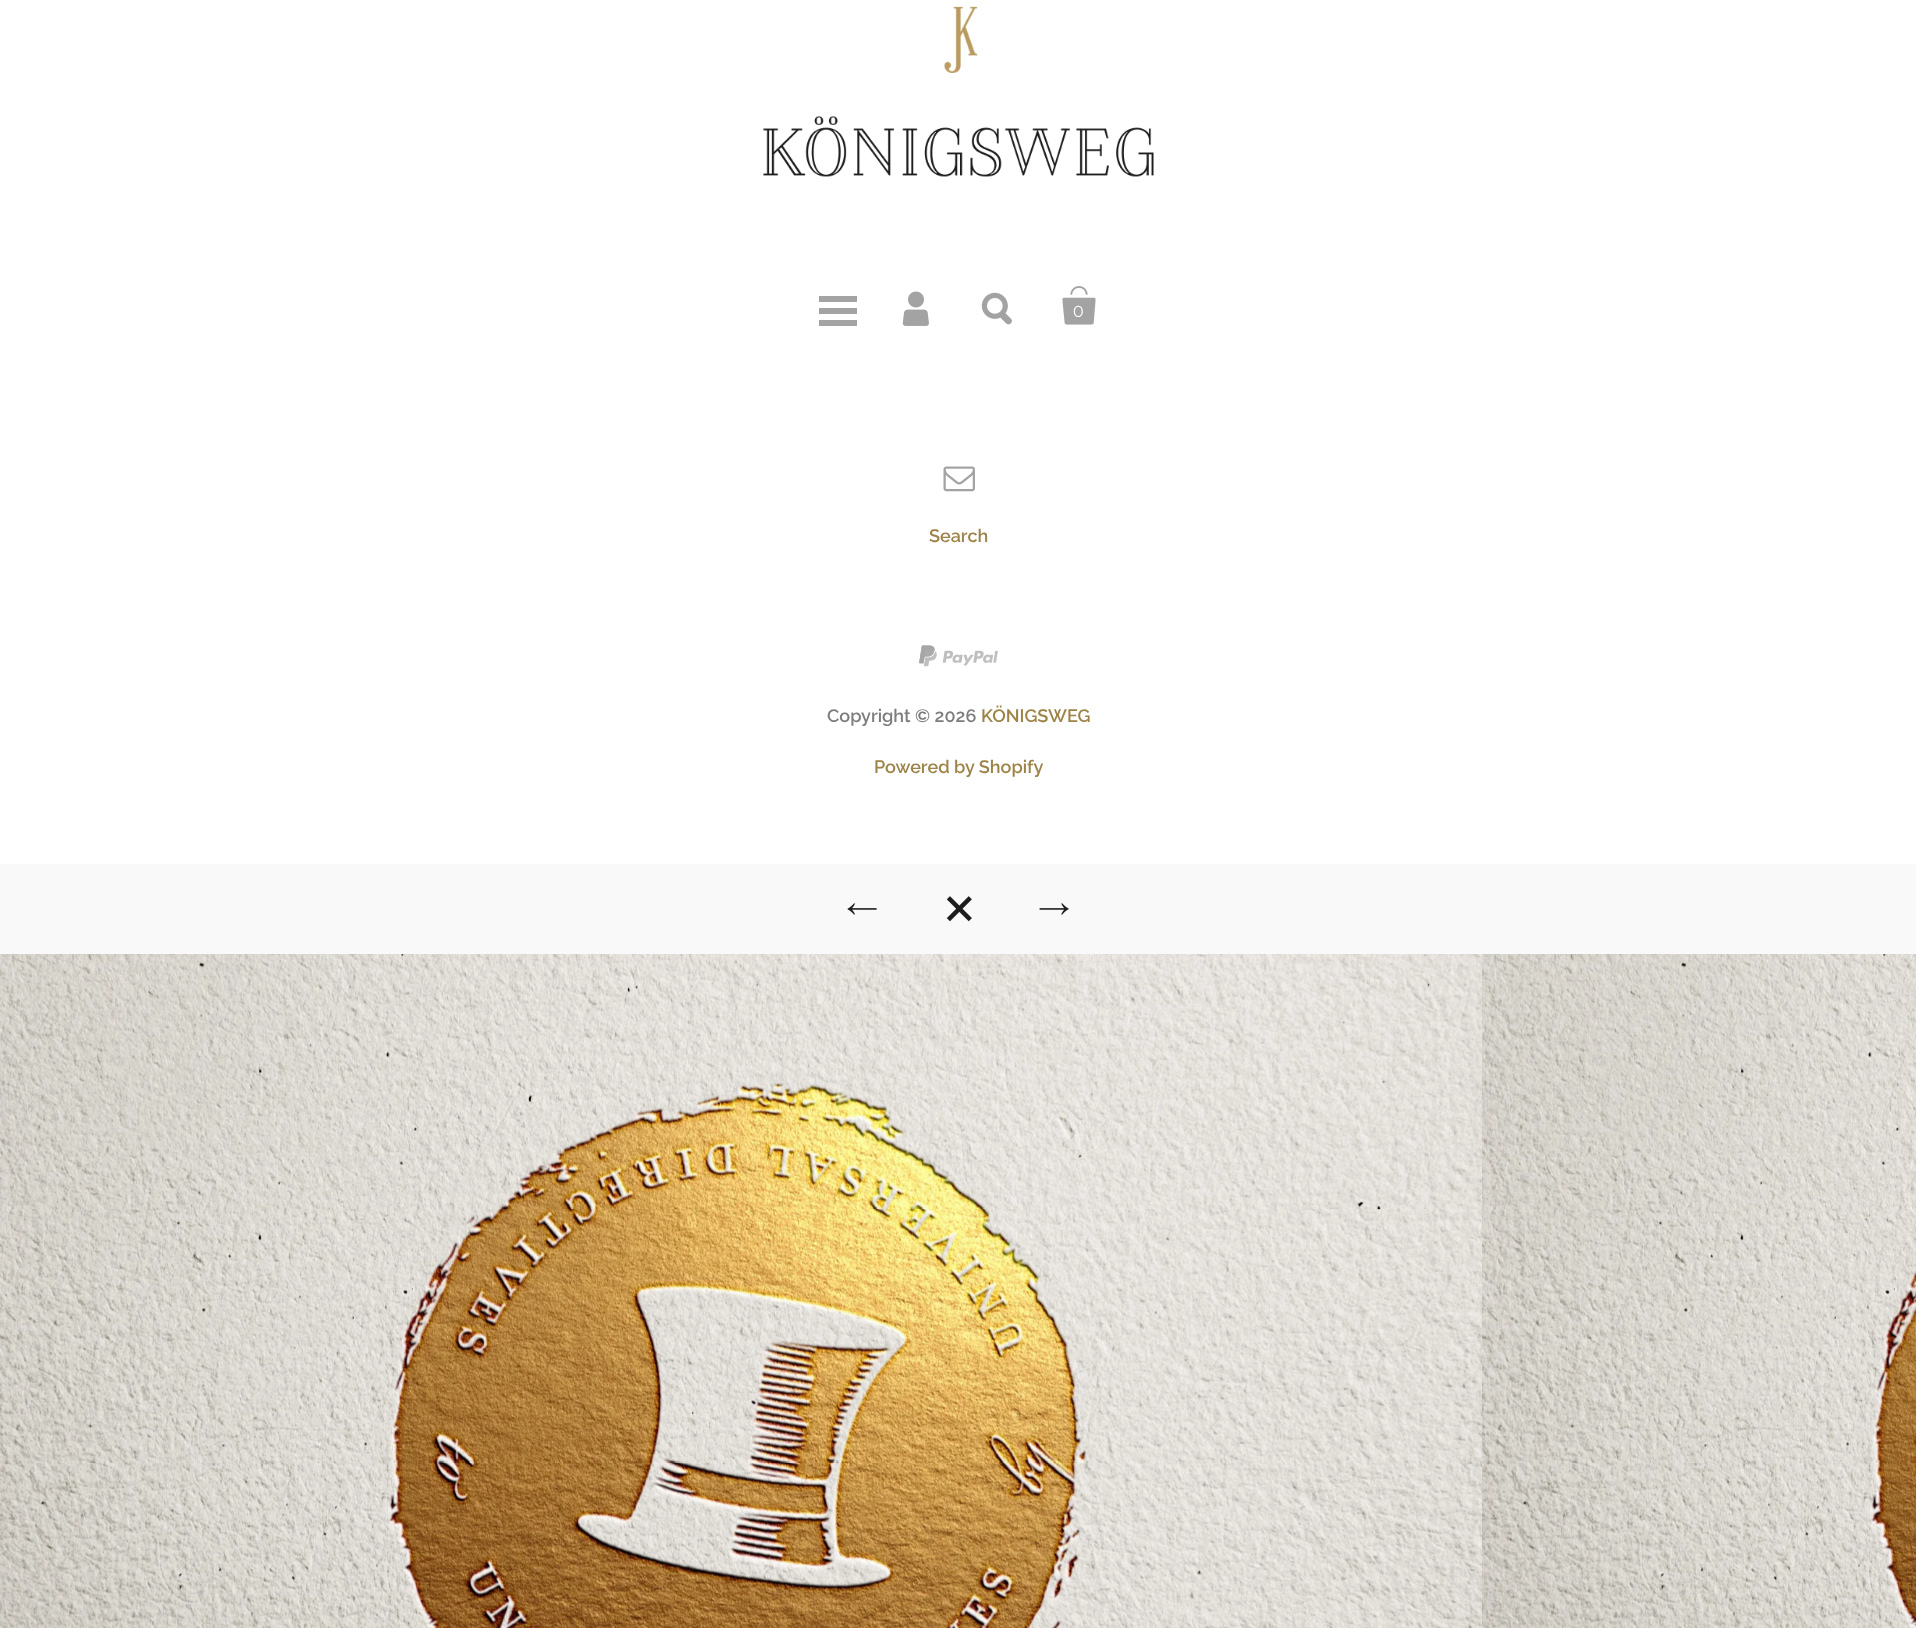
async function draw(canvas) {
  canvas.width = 1916;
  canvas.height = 1628;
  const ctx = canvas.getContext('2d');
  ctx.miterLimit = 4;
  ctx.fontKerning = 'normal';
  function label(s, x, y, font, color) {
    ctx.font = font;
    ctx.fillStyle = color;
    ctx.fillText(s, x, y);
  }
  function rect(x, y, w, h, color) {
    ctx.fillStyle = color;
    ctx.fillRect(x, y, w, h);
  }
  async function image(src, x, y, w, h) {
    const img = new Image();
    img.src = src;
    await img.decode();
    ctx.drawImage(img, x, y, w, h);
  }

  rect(0, 0, 1916, 1628, '#f9f9f9');
  rect(0, 0, 1916, 864, '#fff');
  await image('assets/img1.png', 763, 6, 391, 171);
  rect(819, 296, 38, 6, '#a3a3a3');
  rect(819, 308, 38, 6, '#a3a3a3');
  rect(819, 320, 38, 6, '#a3a3a3');
  await image('assets/img2.png', 902, 291, 27, 35);
  await image('assets/img3.png', 981, 292, 31, 33);
  await image('assets/img4.png', 1062, 286, 34, 39);
  label('0', 1073, 317, '16px Montserrat', '#fff');
  await image('assets/img5.png', 943, 466, 32, 26);
  label('Search', 929, 542, '600 18px Raleway', '#9d8347');
  await image('assets/img6.png', 919, 645, 79, 22);
  label('Copyright © 2026', 827, 722, '600 18px Raleway', '#7d7d7d');
  label('KÖNIGSWEG', 981, 722, '600 18px Raleway', '#9d8347');
  label('Powered by Shopify', 874, 773, '600 18px Raleway', '#9d8347');
  await image('assets/img7.png', 847, 903, 30, 12);
  await image('assets/img8.png', 946, 896, 26, 26);
  await image('assets/img9.png', 1039, 903, 30, 12);
  await image('assets/img10.png', 0, 954, 1482, 674);
  await image('assets/img11.png', 1482, 954, 434, 674);
}

draw(document.querySelector('canvas'));
